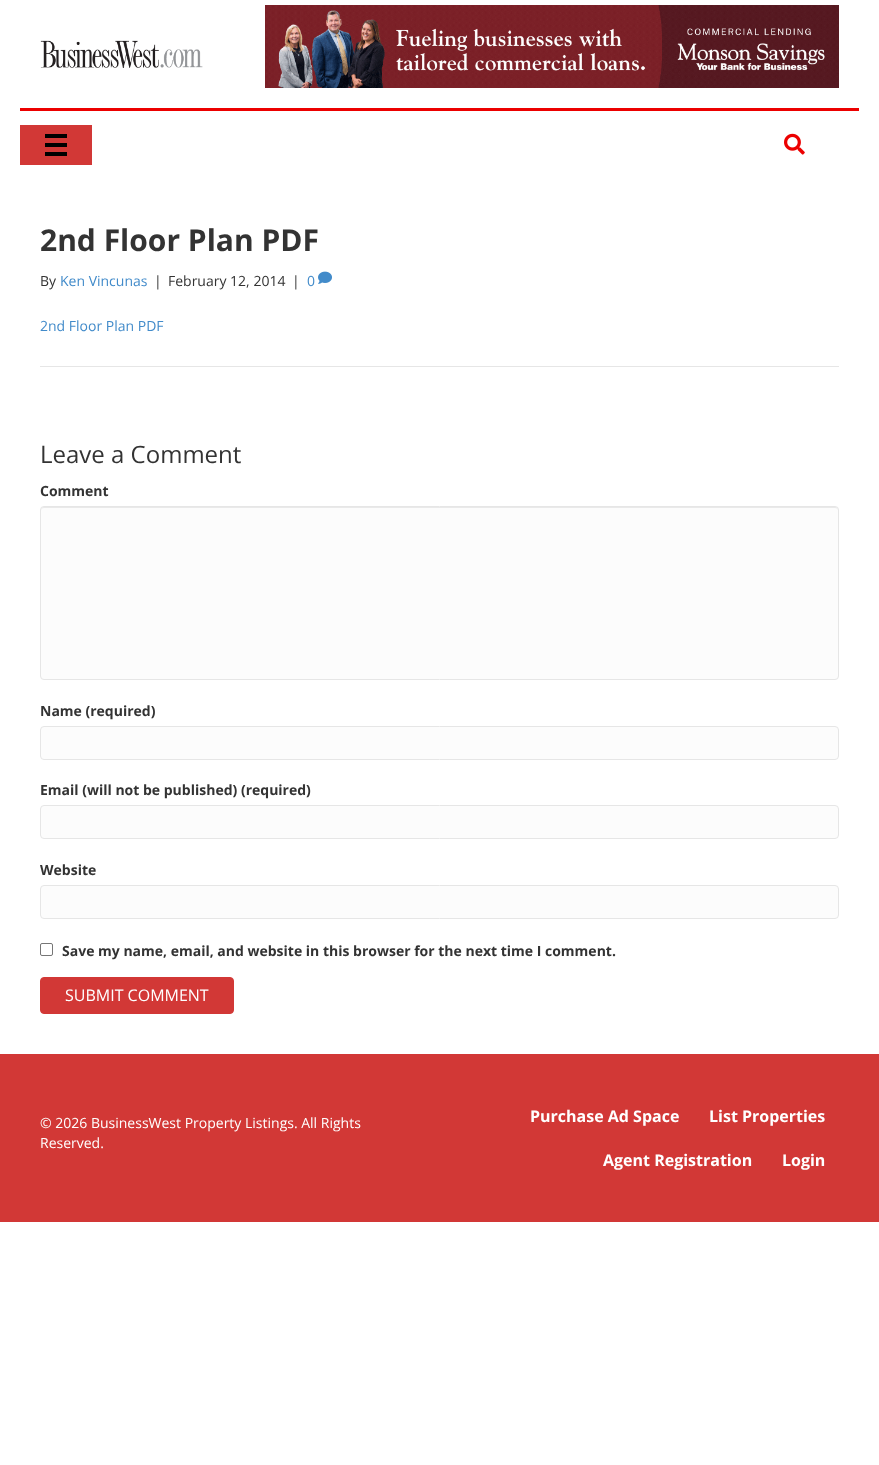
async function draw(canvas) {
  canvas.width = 879;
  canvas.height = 1465;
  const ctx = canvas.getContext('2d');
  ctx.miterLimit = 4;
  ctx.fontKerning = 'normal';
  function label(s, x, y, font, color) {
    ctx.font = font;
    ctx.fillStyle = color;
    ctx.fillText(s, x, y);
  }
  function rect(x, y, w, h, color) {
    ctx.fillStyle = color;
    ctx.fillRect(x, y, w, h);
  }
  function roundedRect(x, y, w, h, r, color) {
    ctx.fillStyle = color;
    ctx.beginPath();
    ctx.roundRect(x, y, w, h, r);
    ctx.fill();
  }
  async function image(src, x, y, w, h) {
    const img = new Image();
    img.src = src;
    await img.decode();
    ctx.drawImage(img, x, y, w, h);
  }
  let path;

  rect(0, 0, 879, 1465, '#fff');
  await image('assets/img1.png', 40, 40, 163, 28);
  await image('assets/img2.png', 265, 5, 574, 83);
  rect(20, 108, 839, 3, '#ec0000');
  rect(20, 125, 72, 40, '#d23836');
  rect(45, 134, 22, 4, '#000');
  rect(45, 143, 22, 4, '#000');
  rect(45, 152, 22, 4, '#000');
  await image('assets/img3.png', 784, 133, 21, 22);
  label('2nd Floor Plan PDF', 40, 251, 'bold 30px Open Sans', '#333');
  label('By', 40, 286, '14px Open Sans', '#333');
  label('Ken Vincunas', 60, 286, '14px Open Sans', '#428bca');
  label('|', 154, 286, '14px Open Sans', '#333');
  label('February 12, 2014', 168, 286, '14px Open Sans', '#333');
  label('|', 292, 286, '14px Open Sans', '#333');
  label('0', 307, 286, '14px Open Sans', '#428bca');
  await image('assets/img4.png', 318, 271, 14, 13);
  label('2nd Floor Plan PDF', 40, 331, '14px Open Sans', '#428bca');
  rect(40, 366, 799, 1, '#e6e6e6');
  label('Leave a Comment', 40, 463, '24px Open Sans', '#333');
  label('Comment', 40, 496, 'bold 14px Open Sans', '#333');
  roundedRect(40, 506, 799, 174, 4, '#fcfcfc');
  ctx.fillStyle = '#e9e9e9';
  path = new Path2D('M44 508H835C837 508 838 509 838 511C838 509 837 507 835 507H44C42 507 41 509 41 511C41 509 42 508 44 508Z');
  ctx.fill(path);
  ctx.beginPath();
  ctx.roundRect(40.5, 506.5, 798, 173, 3.5);
  ctx.strokeStyle = '#e6e6e6';
  ctx.stroke();
  label('Name (required)', 40, 716, 'bold 14px Open Sans', '#333');
  ctx.fillStyle = '#fcfcfc';
  ctx.beginPath();
  ctx.roundRect(40.5, 726.5, 798, 33, 3.5);
  ctx.fill();
  ctx.stroke();
  label('Email (will not be published) (required)', 40, 795, 'bold 14px Open Sans', '#333');
  ctx.fillStyle = '#fcfcfc';
  ctx.beginPath();
  ctx.roundRect(40.5, 805.5, 798, 33, 3.5);
  ctx.fill();
  ctx.stroke();
  label('Website', 40, 875, 'bold 14px Open Sans', '#333');
  ctx.fillStyle = '#fcfcfc';
  ctx.beginPath();
  ctx.roundRect(40.5, 885.5, 798, 33, 3.5);
  ctx.fill();
  ctx.stroke();
  ctx.beginPath();
  ctx.roundRect(40.5, 943.5, 12, 12, 1.5);
  ctx.strokeStyle = '#767676';
  ctx.stroke();
  label('Save my name, email, and website in this browser for the next time I comment.', 62, 956, 'bold 14px Open Sans', '#333');
  ctx.fillStyle = '#d23836';
  ctx.beginPath();
  ctx.roundRect(40.5, 977.5, 193, 36, 3.5);
  ctx.fill();
  ctx.strokeStyle = '#d23836';
  ctx.stroke();
  label('SUBMIT COMMENT', 65, 1001, '16px Open Sans', '#fff');
  rect(0, 1054, 879, 168, '#d23836');
  label('© 2026 BusinessWest Property Listings. All Rights', 40, 1128, '14px Open Sans', '#fff');
  label('Reserved.', 40, 1148, '14px Open Sans', '#fff');
  label('Purchase Ad Space', 530, 1122, 'bold 16px Open Sans', '#fff');
  label('List Properties', 709, 1122, 'bold 16px Open Sans', '#fff');
  label('Agent Registration', 603, 1166, 'bold 16px Open Sans', '#fff');
  label('Login', 782, 1166, 'bold 16px Open Sans', '#fff');
}

draw(document.querySelector('canvas'));
